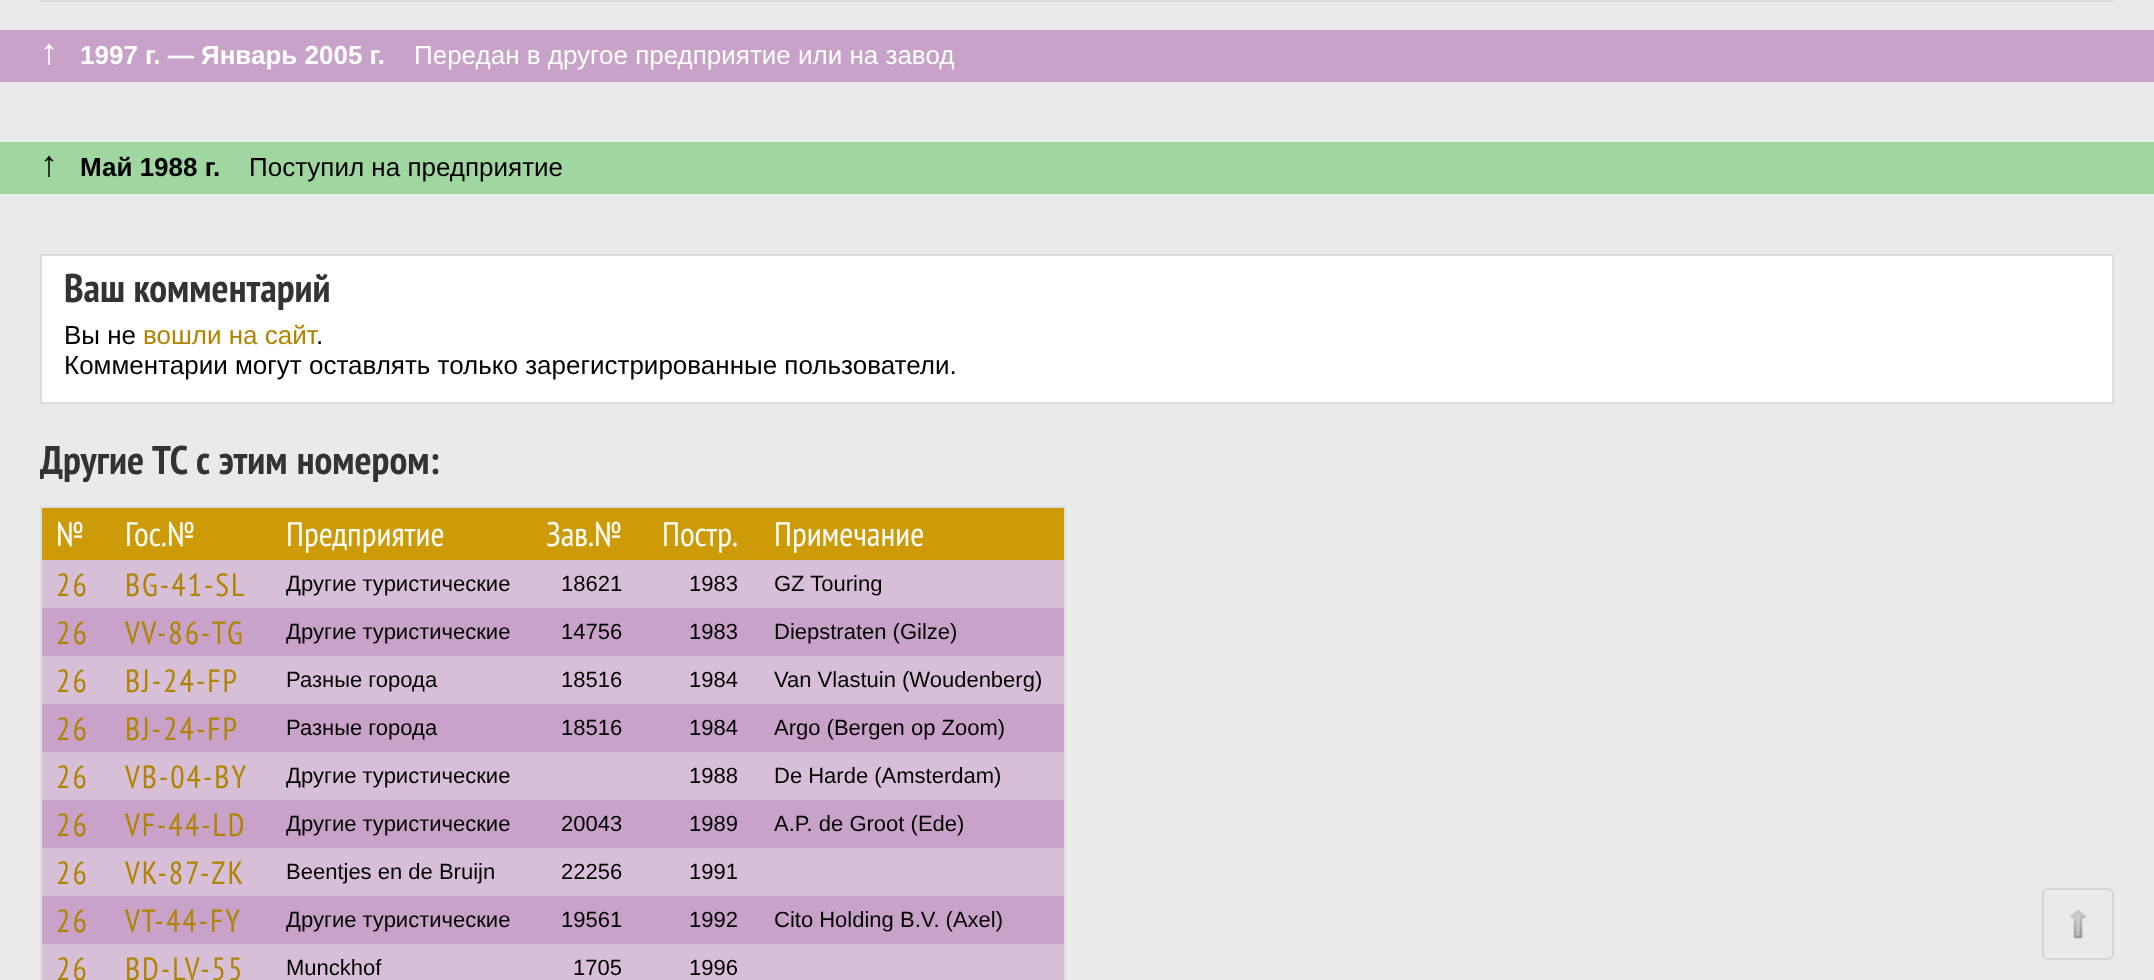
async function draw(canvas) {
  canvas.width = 2154;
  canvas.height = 980;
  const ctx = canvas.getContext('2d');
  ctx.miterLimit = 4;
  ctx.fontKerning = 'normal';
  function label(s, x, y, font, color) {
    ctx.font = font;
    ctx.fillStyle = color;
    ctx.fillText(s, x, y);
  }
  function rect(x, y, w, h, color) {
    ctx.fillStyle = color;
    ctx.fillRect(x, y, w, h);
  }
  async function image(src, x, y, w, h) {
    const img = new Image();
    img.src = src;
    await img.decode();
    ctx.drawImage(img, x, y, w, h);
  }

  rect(0, 0, 2154, 980, '#eaeaea');
  ctx.strokeStyle = '#ddd';
  ctx.lineWidth = 2;
  ctx.strokeRect(41, -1, 2072, 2);
  rect(0, 30, 2154, 52, '#c8a2c8');
  label('↑', 40, 64, '36px Liberation Sans', '#fff');
  label('1997 г. — Январь 2005 г.', 80, 64, 'bold 26px Liberation Sans', '#fff');
  label('Передан в другое предприятие или на завод', 414, 64, '26px Liberation Sans', '#fff');
  rect(0, 142, 2154, 52, '#a0d6a0');
  label('↑', 40, 176, '36px Liberation Sans', '#000');
  label('Май 1988 г.', 80, 176, 'bold 26px Liberation Sans', '#000');
  label('Поступил на предприятие', 249, 176, '26px Liberation Sans', '#000');
  ctx.fillStyle = '#fff';
  ctx.beginPath();
  ctx.rect(41, 255, 2072, 148);
  ctx.fill();
  ctx.stroke();
  label('Ваш комментарий', 64, 302, 'bold 40px PT Sans Narrow', '#333');
  label('Вы не', 64, 344, '26px Liberation Sans', '#000');
  label('вошли на сайт', 143, 344, '26px Liberation Sans', '#b08300');
  label('.', 316, 344, '26px Liberation Sans', '#000');
  label('Комментарии могут оставлять только зарегистрированные пользователи.', 64, 374, '26px Liberation Sans', '#000');
  ctx.wordSpacing = '1px';
  label('Другие ТС с этим номером:', 40, 474, 'bold 40px PT Sans Narrow', '#333');
  ctx.strokeRect(41, 507, 1024, 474);
  rect(42, 508, 1022, 52, '#cd9b08');
  ctx.wordSpacing = '0px';
  label('№', 56, 546, '34px PT Sans Narrow', '#fff');
  label('Гос.№', 125, 546, '34px PT Sans Narrow', '#fff');
  label('Предприятие', 286, 546, '34px PT Sans Narrow', '#fff');
  label('Зав.№', 546, 546, '34px PT Sans Narrow', '#fff');
  label('Постр.', 662, 546, '34px PT Sans Narrow', '#fff');
  label('Примечание', 774, 546, '34px PT Sans Narrow', '#fff');
  rect(42, 560, 1022, 48, '#d8bfd8');
  ctx.letterSpacing = '2px';
  label('26', 56, 596, '32px PT Sans Narrow', '#b08300');
  label('BG-41-SL', 125, 596, '32px PT Sans Narrow', '#b08300');
  ctx.letterSpacing = '0px';
  label('Другие туристические', 286, 591, '22px Liberation Sans', '#000');
  label('18621', 561, 591, '22px Liberation Sans', '#000');
  label('1983', 689, 591, '22px Liberation Sans', '#000');
  label('GZ Touring', 774, 591, '22px Liberation Sans', '#000');
  rect(42, 608, 1022, 48, '#c8a2c8');
  ctx.letterSpacing = '2px';
  label('26', 56, 644, '32px PT Sans Narrow', '#b08300');
  label('VV-86-TG', 125, 644, '32px PT Sans Narrow', '#b08300');
  ctx.letterSpacing = '0px';
  label('Другие туристические', 286, 639, '22px Liberation Sans', '#000');
  label('14756', 561, 639, '22px Liberation Sans', '#000');
  label('1983', 689, 639, '22px Liberation Sans', '#000');
  label('Diepstraten (Gilze)', 774, 639, '22px Liberation Sans', '#000');
  rect(42, 656, 1022, 48, '#d8bfd8');
  ctx.letterSpacing = '2px';
  label('26', 56, 692, '32px PT Sans Narrow', '#b08300');
  label('BJ-24-FP', 125, 692, '32px PT Sans Narrow', '#b08300');
  ctx.letterSpacing = '0px';
  label('Разные города', 286, 687, '22px Liberation Sans', '#000');
  label('18516', 561, 687, '22px Liberation Sans', '#000');
  label('1984', 689, 687, '22px Liberation Sans', '#000');
  label('Van Vlastuin (Woudenberg)', 774, 687, '22px Liberation Sans', '#000');
  rect(42, 704, 1022, 48, '#c8a2c8');
  ctx.letterSpacing = '2px';
  label('26', 56, 740, '32px PT Sans Narrow', '#b08300');
  label('BJ-24-FP', 125, 740, '32px PT Sans Narrow', '#b08300');
  ctx.letterSpacing = '0px';
  label('Разные города', 286, 735, '22px Liberation Sans', '#000');
  label('18516', 561, 735, '22px Liberation Sans', '#000');
  label('1984', 689, 735, '22px Liberation Sans', '#000');
  label('Argo (Bergen op Zoom)', 774, 735, '22px Liberation Sans', '#000');
  rect(42, 752, 1022, 48, '#d8bfd8');
  ctx.letterSpacing = '2px';
  label('26', 56, 788, '32px PT Sans Narrow', '#b08300');
  label('VB-04-BY', 125, 788, '32px PT Sans Narrow', '#b08300');
  ctx.letterSpacing = '0px';
  label('Другие туристические', 286, 783, '22px Liberation Sans', '#000');
  label('1988', 689, 783, '22px Liberation Sans', '#000');
  label('De Harde (Amsterdam)', 774, 783, '22px Liberation Sans', '#000');
  rect(42, 800, 1022, 48, '#c8a2c8');
  ctx.letterSpacing = '2px';
  label('26', 56, 836, '32px PT Sans Narrow', '#b08300');
  label('VF-44-LD', 125, 836, '32px PT Sans Narrow', '#b08300');
  ctx.letterSpacing = '0px';
  label('Другие туристические', 286, 831, '22px Liberation Sans', '#000');
  label('20043', 561, 831, '22px Liberation Sans', '#000');
  label('1989', 689, 831, '22px Liberation Sans', '#000');
  label('A.P. de Groot (Ede)', 774, 831, '22px Liberation Sans', '#000');
  rect(42, 848, 1022, 48, '#d8bfd8');
  ctx.letterSpacing = '2px';
  label('26', 56, 884, '32px PT Sans Narrow', '#b08300');
  label('VK-87-ZK', 125, 884, '32px PT Sans Narrow', '#b08300');
  ctx.letterSpacing = '0px';
  label('Beentjes en de Bruijn', 286, 879, '22px Liberation Sans', '#000');
  label('22256', 561, 879, '22px Liberation Sans', '#000');
  label('1991', 689, 879, '22px Liberation Sans', '#000');
  rect(42, 896, 1022, 48, '#c8a2c8');
  ctx.letterSpacing = '2px';
  label('26', 56, 932, '32px PT Sans Narrow', '#b08300');
  label('VT-44-FY', 125, 932, '32px PT Sans Narrow', '#b08300');
  ctx.letterSpacing = '0px';
  label('Другие туристические', 286, 927, '22px Liberation Sans', '#000');
  label('19561', 561, 927, '22px Liberation Sans', '#000');
  label('1992', 689, 927, '22px Liberation Sans', '#000');
  label('Cito Holding B.V. (Axel)', 774, 927, '22px Liberation Sans', '#000');
  rect(42, 944, 1022, 36, '#d8bfd8');
  ctx.letterSpacing = '2px';
  label('26', 56, 980, '32px PT Sans Narrow', '#b08300');
  label('BD-LV-55', 125, 980, '32px PT Sans Narrow', '#b08300');
  ctx.letterSpacing = '0px';
  label('Munckhof', 286, 975, '22px Liberation Sans', '#000');
  label('1705', 573, 975, '22px Liberation Sans', '#000');
  label('1996', 689, 975, '22px Liberation Sans', '#000');
  await image('assets/img1.png', 2069, 909, 18, 30);
  ctx.beginPath();
  ctx.roundRect(2043, 889, 70, 70, 5);
  ctx.strokeStyle = '#d5d5d5';
  ctx.stroke();
}

draw(document.querySelector('canvas'));
